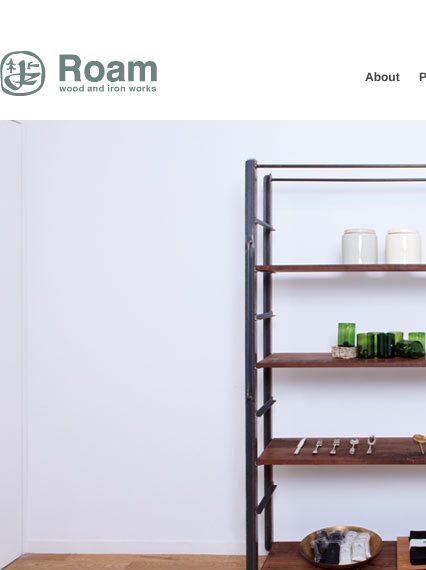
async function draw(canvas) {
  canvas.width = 426;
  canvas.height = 570;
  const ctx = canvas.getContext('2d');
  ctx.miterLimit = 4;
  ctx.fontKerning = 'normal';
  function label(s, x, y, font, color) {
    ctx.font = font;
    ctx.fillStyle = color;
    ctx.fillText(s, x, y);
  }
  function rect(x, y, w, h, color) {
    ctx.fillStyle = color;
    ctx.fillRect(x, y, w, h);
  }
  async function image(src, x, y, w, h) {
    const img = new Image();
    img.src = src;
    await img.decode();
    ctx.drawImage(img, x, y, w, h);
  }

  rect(0, 0, 426, 570, '#fff');
  await image('assets/img1.png', 0, 50, 157, 46);
  label('About', 365, 81, 'bold 12px Liberation Sans', '#444');
  label('P', 419, 81, 'bold 12px Liberation Sans', '#444');
  await image('assets/img2.png', 0, 120, 426, 450);
}

draw(document.querySelector('canvas'));
